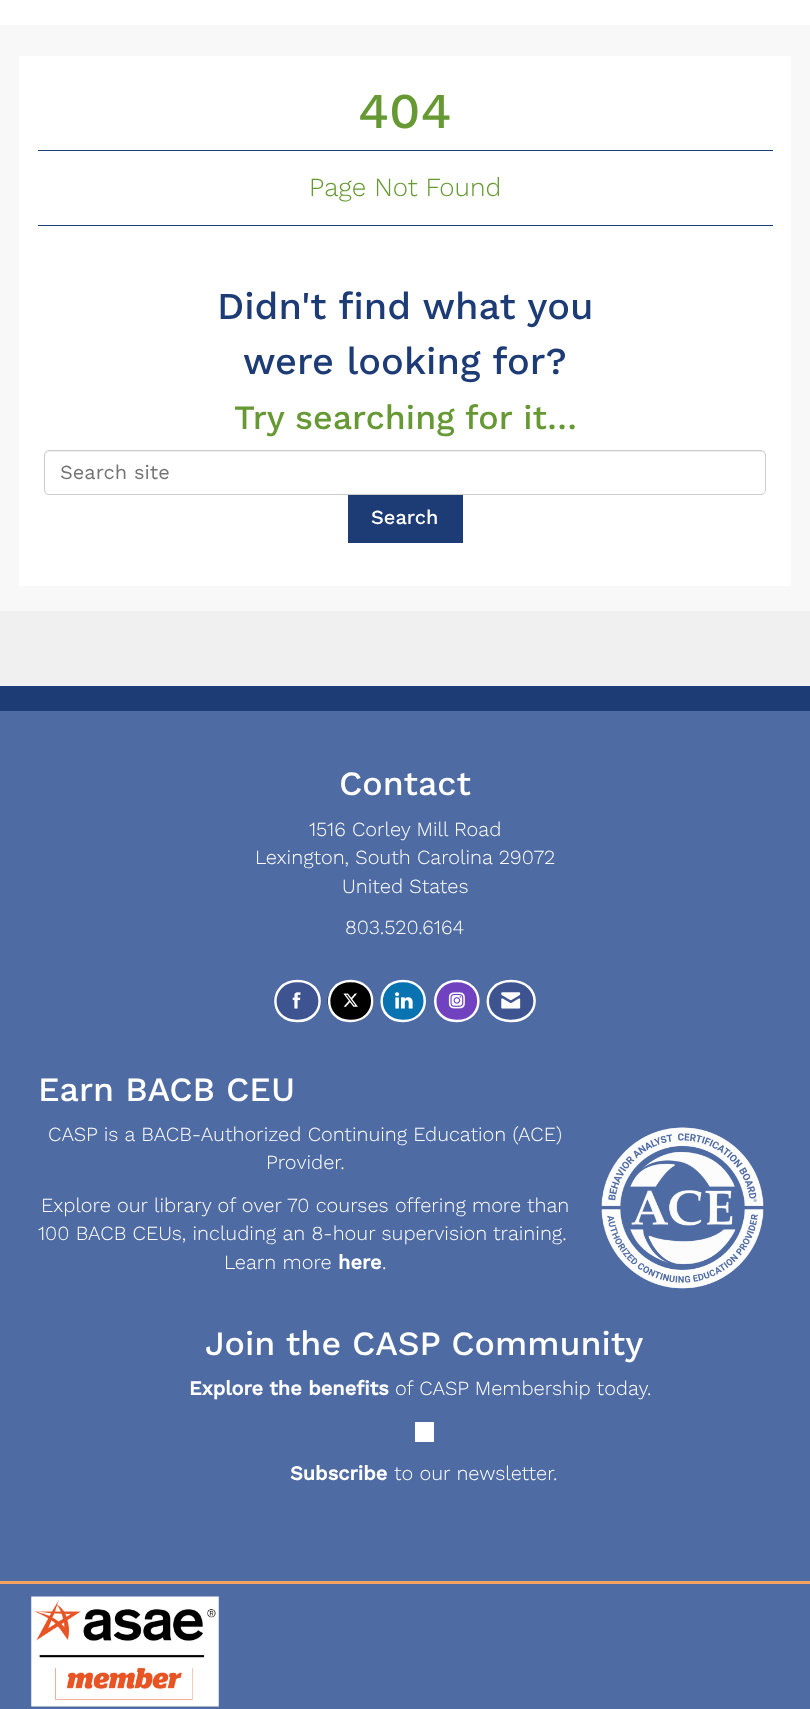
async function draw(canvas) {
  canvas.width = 810;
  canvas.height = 1709;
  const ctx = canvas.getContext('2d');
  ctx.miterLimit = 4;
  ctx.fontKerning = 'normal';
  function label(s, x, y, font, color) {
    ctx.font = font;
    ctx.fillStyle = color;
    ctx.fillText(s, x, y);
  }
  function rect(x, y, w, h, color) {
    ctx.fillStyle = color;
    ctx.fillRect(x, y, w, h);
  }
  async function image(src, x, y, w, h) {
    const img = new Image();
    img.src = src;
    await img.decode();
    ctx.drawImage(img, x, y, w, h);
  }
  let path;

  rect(0, 0, 810, 1709, '#f8f8f8');
  rect(0, 0, 810, 25, '#fff');
  rect(19, 56, 772, 530, '#fff');
  rect(38, 150, 735, 1, '#1d3b75');
  label('404', 358, 128, '500 50px Work Sans', '#693');
  rect(38, 225, 735, 1, '#1d3b75');
  label('Page Not Found', 309, 196, '300 26px Work Sans', '#693');
  label('Didn\'t find what you', 217, 319, '500 38px Work Sans', '#1d3b75');
  label('were looking for?', 243, 374, '500 38px Work Sans', '#1d3b75');
  label('Try searching for it…', 234, 429, '500 34px Work Sans', '#693');
  ctx.fillStyle = '#ececec';
  path = new Path2D('M49 452H761C763 452 765 454 765 456C765 453 764 451 761 451H49L46 452L45 453V456C45 454 47 452 49 452Z');
  ctx.fill(path);
  ctx.beginPath();
  ctx.roundRect(44.5, 450.5, 721, 44, 4.5);
  ctx.strokeStyle = '#ccc';
  ctx.stroke();
  label('Search site', 60, 479, '20px Work Sans', '#757575');
  rect(348, 495, 115, 48, '#1d3b75');
  label('Search', 371, 524, '500 20px Work Sans', '#fff');
  rect(0, 611, 810, 75, '#f0f0f0');
  rect(0, 686, 810, 25, '#1d3b75');
  rect(0, 711, 810, 870, '#4f6ba3');
  label('Contact', 339, 795, '500 34px Work Sans', '#fff');
  label('1516 Corley Mill Road', 309, 836, '300 20px Work Sans', '#fff');
  label('Lexington, South Carolina 29072', 255, 864, '300 20px Work Sans', '#fff');
  label('United States', 342, 893, '300 20px Work Sans', '#fff');
  label('803.520.6164', 345, 934, '300 20px Work Sans', '#fff');
  ctx.fillStyle = '#3e5491';
  ctx.beginPath();
  ctx.ellipse(297.5, 1001, 24, 21, 0, 0, 2 * Math.PI);
  ctx.fill();
  path = new Path2D('M297.5 981C327 981 327 1021 297.5 1021C268 1021.5 268 981 297.5 981Z');
  ctx.strokeStyle = '#fff';
  ctx.lineWidth = 2.5;
  ctx.stroke(path);
  await image('assets/img1.png', 292, 992, 9, 17);
  ctx.fillStyle = '#000';
  ctx.beginPath();
  ctx.ellipse(350.5, 1001, 23, 21, 0, 0, 2 * Math.PI);
  ctx.fill();
  path = new Path2D('M350.5 981C379.5 981 379.5 1021 350.5 1021C322 1021.5 322 981 350.5 981Z');
  ctx.stroke(path);
  await image('assets/img2.png', 343, 993, 15, 14);
  ctx.fillStyle = '#0972b1';
  ctx.beginPath();
  ctx.ellipse(403, 1001, 23, 21, 0, 0, 2 * Math.PI);
  ctx.fill();
  path = new Path2D('M403 981C432 981 432 1021 403 1021C374.5 1021.5 374.5 981 403 981Z');
  ctx.stroke(path);
  await image('assets/img3.png', 395, 992, 18, 17);
  ctx.fillStyle = '#7042c0';
  ctx.beginPath();
  ctx.ellipse(457, 1001, 23, 21, 0, 0, 2 * Math.PI);
  ctx.fill();
  path = new Path2D('M457 981C485.5 981 485.5 1021 457 1021C428 1021.5 428 981 457 981Z');
  ctx.stroke(path);
  await image('assets/img4.png', 448, 992, 17, 17);
  ctx.fillStyle = '#3e5491';
  ctx.beginPath();
  ctx.ellipse(511, 1001, 25, 21, 0, 0, 2 * Math.PI);
  ctx.fill();
  path = new Path2D('M511 981C542.5 981 542.5 1021 511 1021C480 1021.5 480 981 511 981Z');
  ctx.stroke(path);
  await image('assets/img5.png', 501, 992, 20, 17);
  label('Earn BACB CEU', 38, 1101, '500 34px Work Sans', '#fff');
  label('CASP is a BACB-Authorized Continuing Education (ACE)', 48, 1141, '300 20px Work Sans', '#fff');
  await image('assets/img6.png', 601, 1127, 163, 162);
  label('Provider.', 266, 1169, '300 20px Work Sans', '#fff');
  label('Explore our library of over 70 courses offering more than', 41, 1212, '300 20px Work Sans', '#fff');
  label('100 BACB CEUs, including an 8-hour supervision training.', 38, 1240, '300 20px Work Sans', '#fff');
  label('Learn more', 224, 1269, '300 20px Work Sans', '#fff');
  label('here', 338, 1269, 'bold 20px Work Sans', '#fff');
  label('.', 382, 1269, '300 20px Work Sans', '#fff');
  label('Join the CASP Community', 205, 1355, '500 34px Work Sans', '#fff');
  label('Explore the benefits', 189, 1395, 'bold 20px Work Sans', '#fff');
  label('of CASP Membership today.', 395, 1395, '300 20px Work Sans', '#fff');
  rect(415, 1422, 19, 20, '#fff');
  label('Subscribe', 290, 1480, 'bold 20px Work Sans', '#fff');
  label('to our newsletter.', 394, 1480, '300 20px Work Sans', '#fff');
  rect(0, 1584, 810, 125, '#4f6ba3');
  rect(0, 1581, 810, 3, '#f4a261');
  await image('assets/img7.png', 31, 1596, 188, 111);
}

draw(document.querySelector('canvas'));
